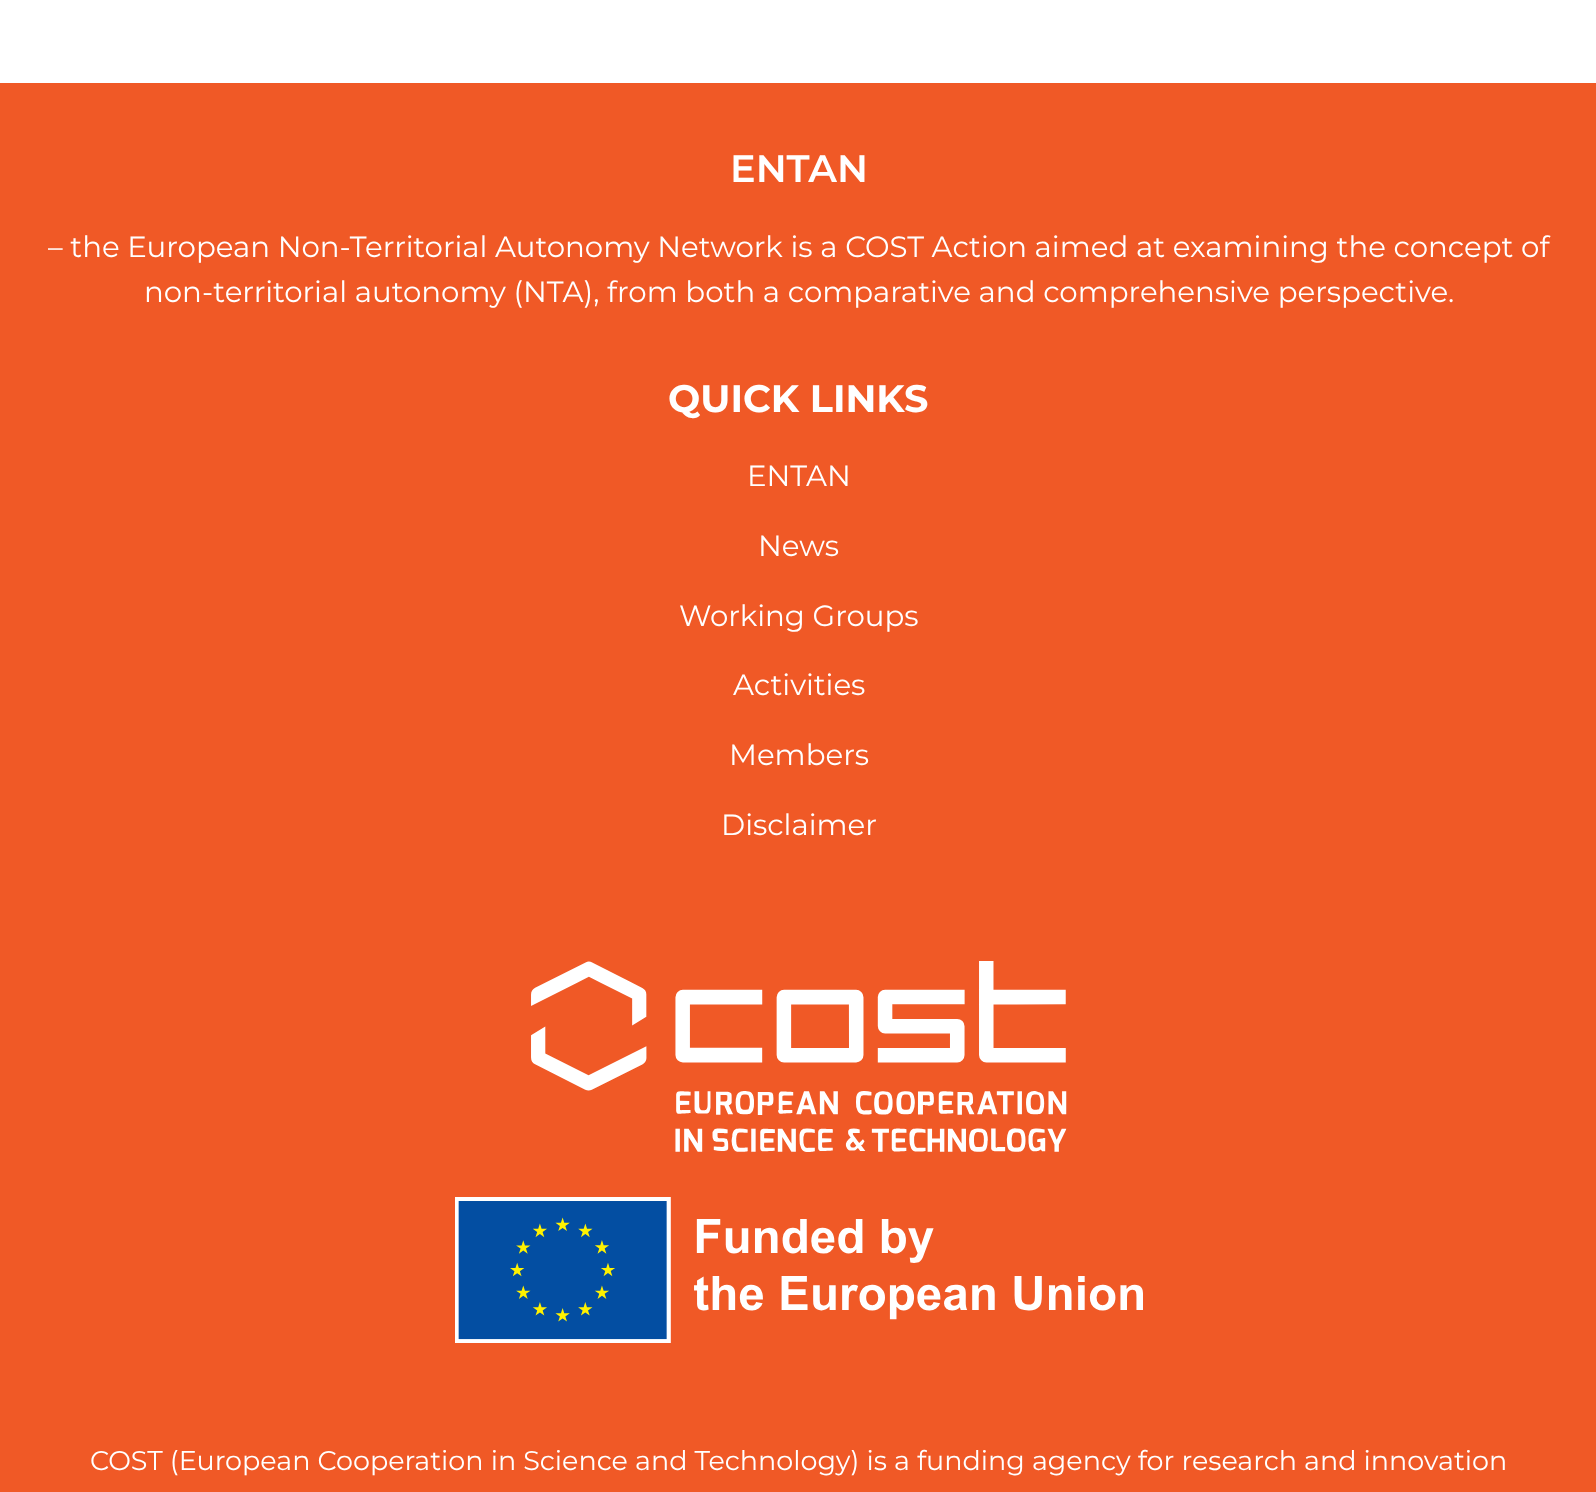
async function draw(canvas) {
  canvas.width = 1596;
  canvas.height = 1492;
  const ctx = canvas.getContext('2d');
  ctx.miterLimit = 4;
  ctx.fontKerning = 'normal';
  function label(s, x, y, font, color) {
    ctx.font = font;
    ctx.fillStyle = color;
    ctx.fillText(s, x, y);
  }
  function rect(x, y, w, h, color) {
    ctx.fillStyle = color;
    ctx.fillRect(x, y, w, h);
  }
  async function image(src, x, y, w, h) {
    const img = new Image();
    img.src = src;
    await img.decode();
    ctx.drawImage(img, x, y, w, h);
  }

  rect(0, 0, 1596, 1492, '#fff');
  rect(0, 83, 1596, 1409, '#f05926');
  label('ENTAN', 730, 182, '600 38.25px Montserrat', '#fff');
  label('– the European Non-Territorial Autonomy Network is a COST Action aimed at examining the concept of', 48, 257, '29.25px Montserrat', '#fff');
  label('non-territorial autonomy (NTA), from both a comparative and comprehensive perspective.', 144, 302, '29.25px Montserrat', '#fff');
  label('QUICK LINKS', 668, 412, 'bold 38.25px Montserrat', '#fff');
  label('ENTAN', 747, 486, '29.25px Montserrat', '#fff');
  label('News', 758, 556, '29.25px Montserrat', '#fff');
  label('Working Groups', 679, 626, '29.25px Montserrat', '#fff');
  label('Activities', 733, 695, '29.25px Montserrat', '#fff');
  label('Members', 729, 765, '29.25px Montserrat', '#fff');
  label('Disclaimer', 721, 835, '29.25px Montserrat', '#fff');
  await image('assets/img1.png', 531, 961, 536, 191);
  await image('assets/img2.png', 455, 1197, 688, 146);
  label('COST (European Cooperation in Science and Technology) is a funding agency for research and innovation', 90, 1470, '27px Montserrat', '#fff');
}

draw(document.querySelector('canvas'));
